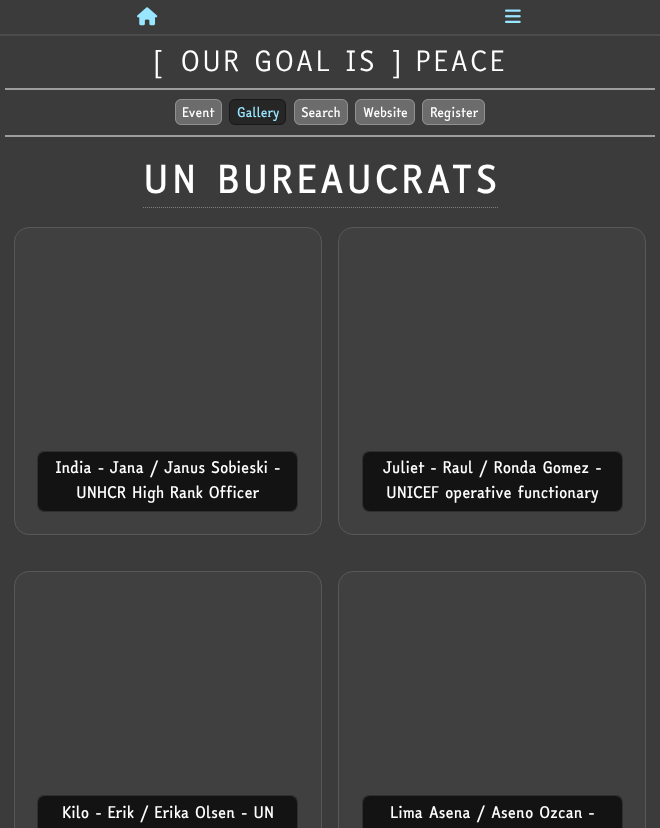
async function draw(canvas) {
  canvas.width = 660;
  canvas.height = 828;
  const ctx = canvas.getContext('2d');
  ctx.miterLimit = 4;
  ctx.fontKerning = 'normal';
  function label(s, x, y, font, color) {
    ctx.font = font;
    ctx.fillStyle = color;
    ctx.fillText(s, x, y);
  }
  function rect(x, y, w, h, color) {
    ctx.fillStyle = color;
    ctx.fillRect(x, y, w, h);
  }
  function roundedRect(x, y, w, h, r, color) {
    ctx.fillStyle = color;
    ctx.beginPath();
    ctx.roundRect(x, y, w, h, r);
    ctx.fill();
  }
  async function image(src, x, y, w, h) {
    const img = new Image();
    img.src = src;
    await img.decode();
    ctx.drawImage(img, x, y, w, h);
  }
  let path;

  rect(0, 0, 660, 828, '#3b3b3b');
  rect(0, 34, 660, 2, '#4c4c4c');
  await image('assets/img1.png', 137, 7, 21, 19);
  await image('assets/img2.png', 505, 9, 16, 14);
  rect(5, 88, 650, 2, '#9d9d9d');
  ctx.letterSpacing = '2.2px';
  label('[ OUR GOAL IS ] PEACE', 154, 71, '27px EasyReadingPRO', '#fff');
  roundedRect(175, 99, 47, 26, 6, '#6c6c6c');
  ctx.beginPath();
  ctx.roundRect(175.5, 99.5, 46, 25, 5.5);
  ctx.strokeStyle = '#ffffff40';
  ctx.stroke();
  ctx.letterSpacing = '0px';
  label('Event', 182, 117, 'bold 12.5px EasyReadingPRO', '#fff');
  roundedRect(229, 99, 57, 26, 6, '#262626');
  ctx.beginPath();
  ctx.roundRect(229.5, 99.5, 56, 25, 5.5);
  ctx.strokeStyle = '#00000059';
  ctx.stroke();
  label('Gallery', 237, 117, 'bold 12.5px EasyReadingPRO', '#98e6ff');
  roundedRect(294, 99, 54, 26, 6, '#6c6c6c');
  ctx.beginPath();
  ctx.roundRect(294.5, 99.5, 53, 25, 5.5);
  ctx.strokeStyle = '#ffffff40';
  ctx.stroke();
  label('Search', 301, 117, 'bold 12.5px EasyReadingPRO', '#fff');
  roundedRect(355, 99, 60, 26, 6, '#6c6c6c');
  ctx.beginPath();
  ctx.roundRect(355.5, 99.5, 59, 25, 5.5);
  ctx.stroke();
  label('Website', 363, 117, 'bold 12.5px EasyReadingPRO', '#fff');
  roundedRect(422, 99, 63, 26, 6, '#6c6c6c');
  ctx.beginPath();
  ctx.roundRect(422.5, 99.5, 62, 25, 5.5);
  ctx.stroke();
  label('Register', 430, 117, 'bold 12.5px EasyReadingPRO', '#fff');
  rect(5, 135, 650, 2, '#9d9d9d');
  ctx.letterSpacing = '3.6px';
  label('UN BUREAUCRATS', 143, 193, 'bold 36px EasyReadingPRO', '#fff');
  path = new Path2D('M143 207.5H499');
  ctx.strokeStyle = '#808080';
  ctx.setLineDash([1, 1]);
  ctx.stroke(path);
  ctx.fillStyle = '#404040';
  ctx.beginPath();
  ctx.roundRect(14.5, 227.5, 307, 307, 14.5);
  ctx.fill();
  ctx.strokeStyle = '#585858';
  ctx.setLineDash([]);
  ctx.stroke();
  roundedRect(37, 451, 261, 61, 8, '#131313');
  ctx.beginPath();
  ctx.roundRect(37.5, 451.5, 260, 60, 7.5);
  ctx.strokeStyle = '#ffffff1f';
  ctx.stroke();
  ctx.letterSpacing = '0px';
  label('India - Jana / Janus Sobieski -', 55, 473, 'bold 15.1px EasyReadingPRO', '#fff');
  label('UNHCR High Rank Officer', 76, 498, 'bold 15.1px EasyReadingPRO', '#fff');
  ctx.fillStyle = '#404040';
  ctx.beginPath();
  ctx.roundRect(338.5, 227.5, 307, 307, 14.5);
  ctx.fill();
  ctx.strokeStyle = '#585858';
  ctx.stroke();
  roundedRect(362, 451, 261, 61, 8, '#131313');
  ctx.beginPath();
  ctx.roundRect(362.5, 451.5, 260, 60, 7.5);
  ctx.strokeStyle = '#ffffff1f';
  ctx.stroke();
  label('Juliet - Raul / Ronda Gomez -', 383, 473, 'bold 15.1px EasyReadingPRO', '#fff');
  label('UNICEF operative functionary', 386, 498, 'bold 15.1px EasyReadingPRO', '#fff');
  ctx.fillStyle = '#404040';
  ctx.beginPath();
  ctx.roundRect(14, 571, 308, 257, [15, 15, 0, 0]);
  ctx.fill();
  ctx.beginPath();
  ctx.roundRect(14.5, 571.5, 307, 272, 14.5);
  ctx.strokeStyle = '#585858';
  ctx.stroke();
  ctx.fillStyle = '#131313';
  ctx.beginPath();
  ctx.roundRect(37, 795, 261, 33, [8, 8, 0, 0]);
  ctx.fill();
  ctx.beginPath();
  ctx.roundRect(37.5, 795.5, 260, 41, 7.5);
  ctx.strokeStyle = '#ffffff1f';
  ctx.stroke();
  label('Kilo - Erik / Erika Olsen - UN', 62, 818, 'bold 15.1px EasyReadingPRO', '#fff');
  ctx.fillStyle = '#404040';
  ctx.beginPath();
  ctx.roundRect(338, 571, 308, 257, [15, 15, 0, 0]);
  ctx.fill();
  ctx.beginPath();
  ctx.roundRect(338.5, 571.5, 307, 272, 14.5);
  ctx.strokeStyle = '#585858';
  ctx.stroke();
  ctx.fillStyle = '#131313';
  ctx.beginPath();
  ctx.roundRect(362, 795, 261, 33, [8, 8, 0, 0]);
  ctx.fill();
  ctx.beginPath();
  ctx.roundRect(362.5, 795.5, 260, 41, 7.5);
  ctx.strokeStyle = '#ffffff1f';
  ctx.stroke();
  label('Lima Asena / Aseno Ozcan -', 390, 818, 'bold 15.1px EasyReadingPRO', '#fff');
}

draw(document.querySelector('canvas'));
